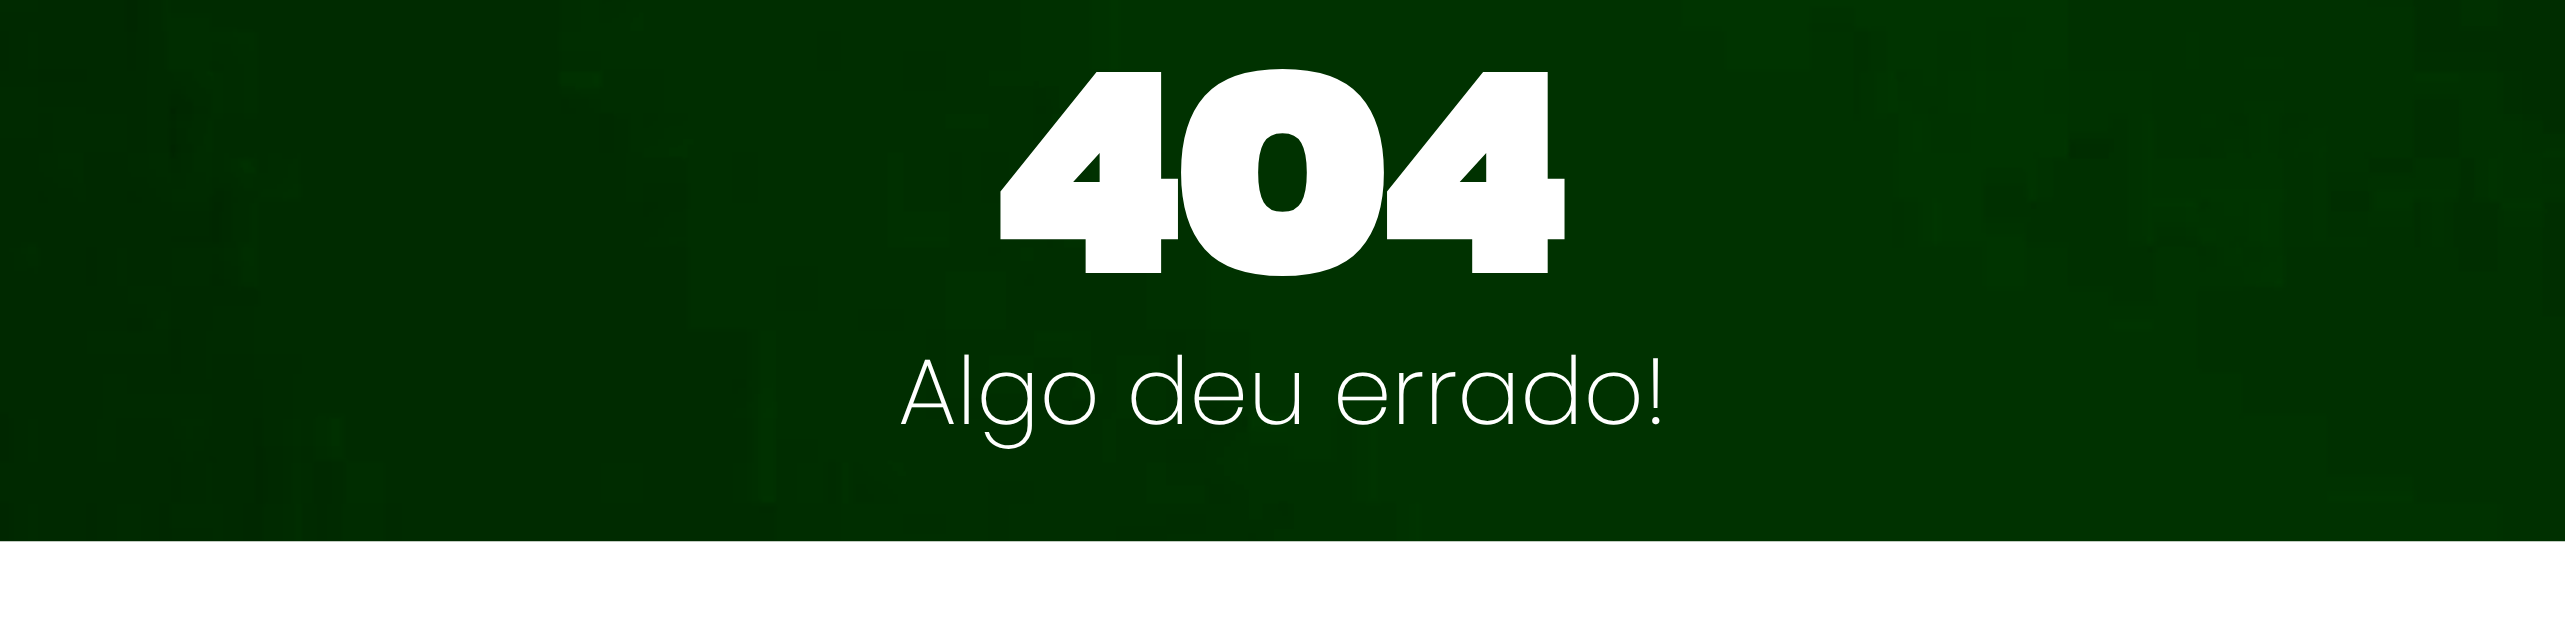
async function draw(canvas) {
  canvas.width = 2565;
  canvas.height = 638;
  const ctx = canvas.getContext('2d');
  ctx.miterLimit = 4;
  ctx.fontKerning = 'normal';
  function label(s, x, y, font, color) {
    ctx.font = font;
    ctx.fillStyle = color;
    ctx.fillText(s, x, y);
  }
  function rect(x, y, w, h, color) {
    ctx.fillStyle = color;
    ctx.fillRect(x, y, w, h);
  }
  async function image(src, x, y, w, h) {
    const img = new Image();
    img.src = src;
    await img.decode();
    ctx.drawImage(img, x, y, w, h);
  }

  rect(0, 0, 2565, 638, '#fff');
  await image('assets/img1.png', 0, 0, 2565, 542);
  label('404', 1002, 273, '900 312px Kanit', '#fff');
  label('Algo deu errado!', 898, 424, '200 93.75px Poppins', '#fff');
}

draw(document.querySelector('canvas'));
